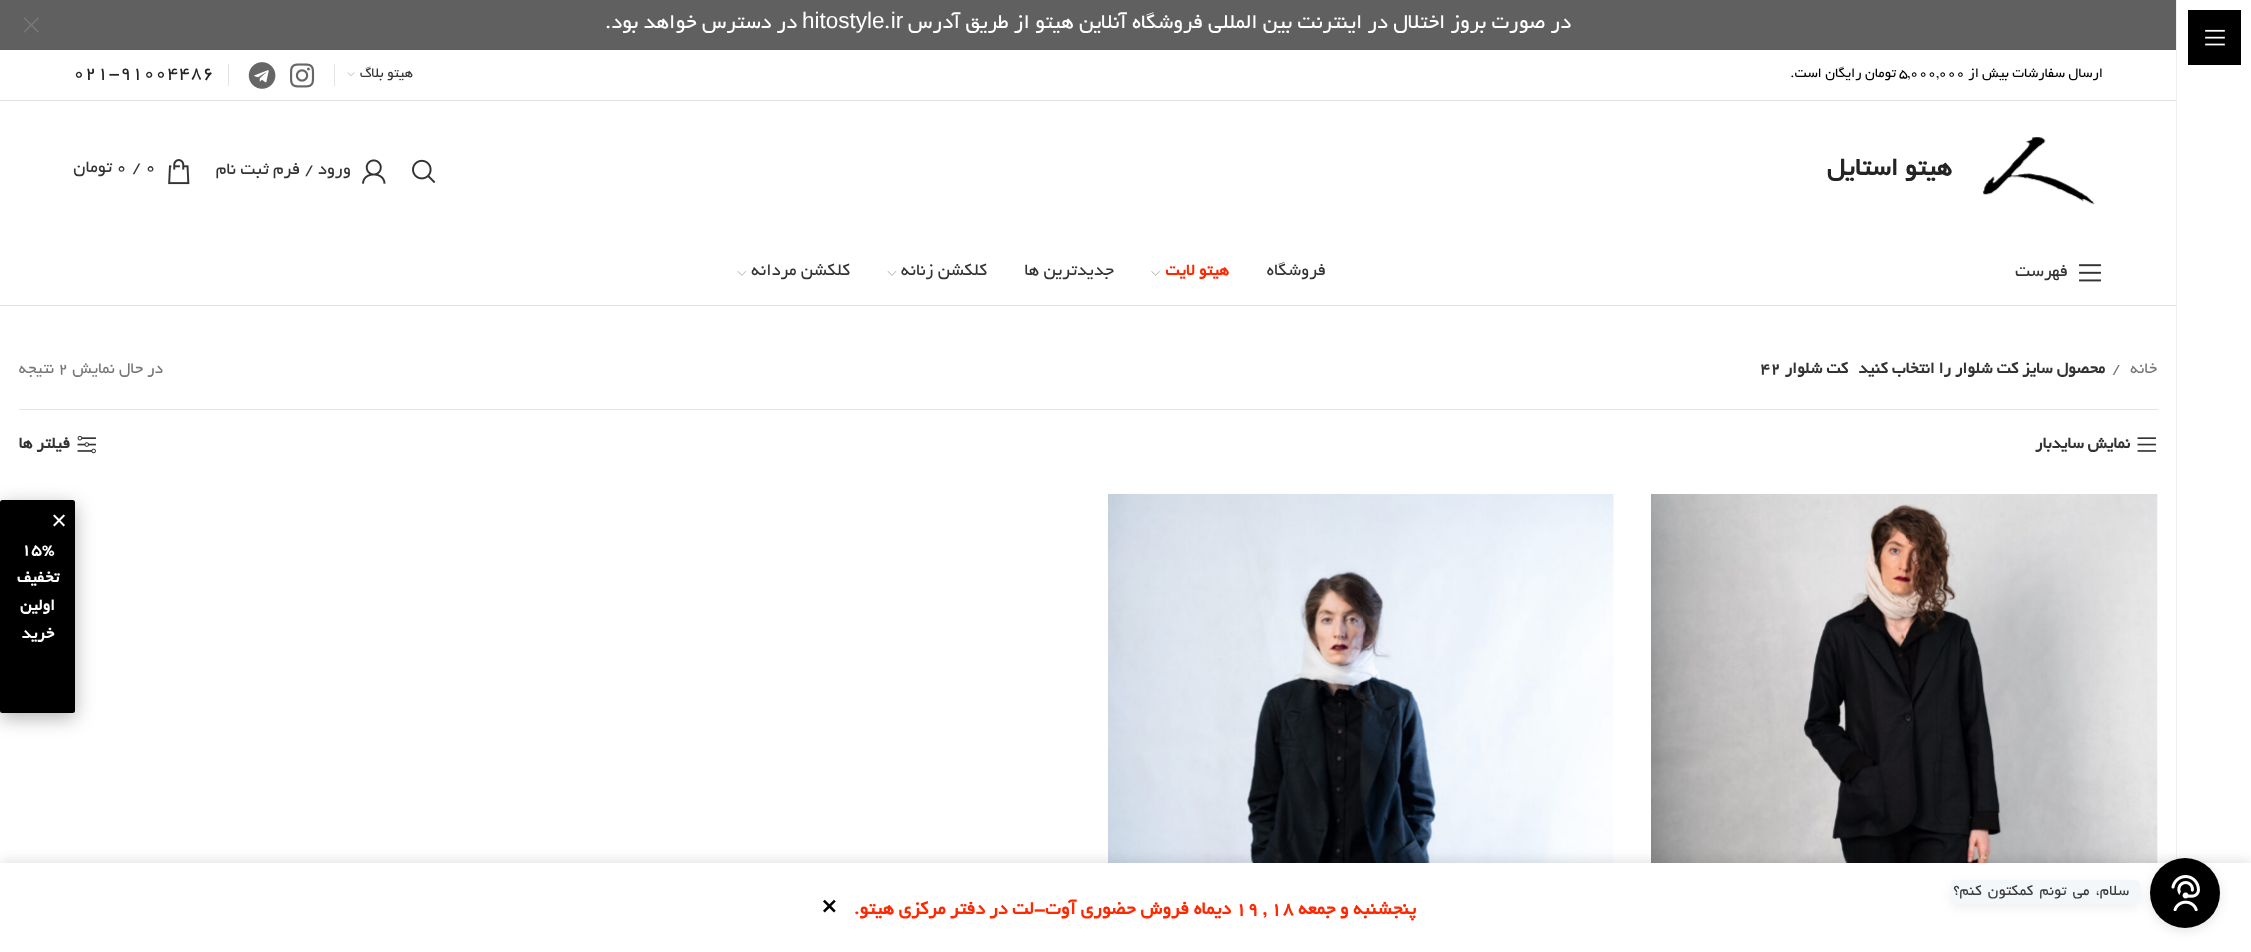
async function draw(canvas) {
  canvas.width = 2251;
  canvas.height = 952;
  const ctx = canvas.getContext('2d');
  ctx.miterLimit = 4;
  ctx.fontKerning = 'normal';
  function label(s, x, y, font, color) {
    ctx.font = font;
    ctx.fillStyle = color;
    ctx.fillText(s, x, y);
  }
  function rect(x, y, w, h, color) {
    ctx.fillStyle = color;
    ctx.fillRect(x, y, w, h);
  }
  function roundedRect(x, y, w, h, r, color) {
    ctx.fillStyle = color;
    ctx.beginPath();
    ctx.roundRect(x, y, w, h, r);
    ctx.fill();
  }
  async function image(src, x, y, w, h) {
    const img = new Image();
    img.src = src;
    await img.decode();
    ctx.drawImage(img, x, y, w, h);
  }

  rect(0, 0, 2251, 952, '#fff');
  rect(2176, 0, 1, 860, '#efefef');
  rect(2188, 10, 53, 55, '#000');
  await image('assets/img1.png', 2205, 29, 20, 17);
  rect(0, 0, 2176, 50, '#606060');
  ctx.direction = 'rtl';
  label('در صورت بروز اختلال در اینترنت بین المللی فروشگاه آنلاین هیتو از طریق آدرس', 1571, 28, '22.5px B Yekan', '#fff');
  ctx.direction = 'ltr';
  label('hitostyle ir', 802, 28, '22.5px Liberation Sans', '#fff');
  ctx.direction = 'rtl';
  label('در دسترس خواهد بود.', 797, 28, '22.5px B Yekan', '#fff');
  ctx.direction = 'ltr';
  label('.', 884, 28, '22.5px B Yekan', '#fff');
  await image('assets/img2.png', 23, 17, 16, 16);
  rect(0, 100, 2176, 1, '#dfe1e4');
  ctx.direction = 'rtl';
  label('ارسال سفارشات بیش از', 2103, 77, '15px B Yekan', '#000');
  ctx.direction = 'ltr';
  label('5,000,000', 1899, 77, '15px B Yekan', '#000');
  ctx.direction = 'rtl';
  label('تومان رایگان است.', 1896, 77, '15px B Yekan', '#000');
  label('هیتو بلاگ', 413, 77, '15px B Yekan', '#333');
  await image('assets/img3.png', 347, 72, 8, 4);
  rect(334, 64, 1, 22, '#e4e4e4');
  await image('assets/img4.png', 290, 63, 25, 25);
  await image('assets/img5.png', 248, 62, 28, 27);
  rect(228, 64, 1, 22, '#e4e4e4');
  ctx.direction = 'ltr';
  label('021-91004486', 73, 78, '20px B Yekan', '#242424');
  await image('assets/img6.png', 1983, 137, 112, 68);
  ctx.direction = 'rtl';
  label('هیتو استایل', 1952, 175, 'bold 27.5px B Yekan', '#242424');
  await image('assets/img7.png', 412, 159, 24, 24);
  await image('assets/img8.png', 362, 159, 24, 25);
  label('ورود / فرم ثبت نام', 351, 174, '18.75px B Yekan', '#333');
  await image('assets/img9.png', 168, 159, 22, 26);
  ctx.direction = 'ltr';
  label('0', 145, 172, '18.75px B Yekan', '#333');
  label('/', 132, 172, '18.75px B Yekan', '#333');
  label('0', 116, 172, '18.75px B Yekan', '#333');
  ctx.direction = 'rtl';
  label('تومان', 112, 172, '18.75px B Yekan', '#333');
  rect(0, 305, 2176, 1, '#dfe1e4');
  await image('assets/img10.png', 2079, 264, 22, 18);
  label('فهرست', 2068, 276, '18.75px B Yekan', '#333');
  label('فروشگاه', 1326, 275, '18.75px B Yekan', '#333');
  label('هیتو لایت', 1229, 275, 'bold 17.5px B Yekan', '#ff2800');
  await image('assets/img11.png', 1151, 271, 9, 5);
  label('جدیدترین ها', 1114, 275, '18.75px B Yekan', '#333');
  label('کلکشن زنانه', 987, 275, '18.75px B Yekan', '#333');
  await image('assets/img12.png', 887, 271, 10, 5);
  label('کلکشن مردانه', 850, 275, '18.75px B Yekan', '#333');
  await image('assets/img12.png', 737, 271, 10, 5);
  rect(19, 409, 2139, 1, '#e4e4e4');
  label('خانه', 2157, 373, '17.5px B Yekan', '#777');
  ctx.direction = 'ltr';
  label('/', 2112, 373, '17.5px B Yekan', '#777');
  ctx.direction = 'rtl';
  label('محصول سایز کت‌ شلوار را انتخاب کنید', 2105, 373, 'bold 17.5px B Yekan', '#333');
  label('کت شلوار', 1848, 373, 'bold 17.5px B Yekan', '#333');
  ctx.direction = 'ltr';
  label('۴۲', 1760, 373, 'bold 17.5px B Yekan', '#333');
  ctx.direction = 'rtl';
  label('در حال نمایش', 163, 373, '17.5px B Yekan', '#777');
  ctx.direction = 'ltr';
  label('2', 58, 373, '17.5px B Yekan', '#777');
  ctx.direction = 'rtl';
  label('نتیجه', 54, 373, '17.5px B Yekan', '#777');
  await image('assets/img13.png', 2137, 437, 19, 15);
  label('نمایش سایدبار', 2130, 448, 'bold 17.5px B Yekan', '#333');
  await image('assets/img14.png', 77, 435, 19, 19);
  label('فیلتر ها', 70, 448, 'bold 17.5px B Yekan', '#333');
  await image('assets/img15.png', 1651, 494, 507, 369);
  await image('assets/img16.png', 1108, 494, 506, 369);
  ctx.fillStyle = '#0000004d';
  ctx.filter = 'blur(9.5px)';
  ctx.beginPath();
  ctx.roundRect(0, 505, 75, 213, 2.5);
  ctx.fill();
  ctx.filter = 'none';
  roundedRect(0, 500, 75, 213, 2.5, '#000');
  ctx.direction = 'ltr';
  label('×', 52, 524, '22.5px B Yekan', '#fff');
  label('15%', 21, 554, 'bold 17.5px B Yekan', '#fff');
  ctx.direction = 'rtl';
  label('تخفیف', 59, 582, 'bold 17.5px B Yekan', '#fff');
  label('اولین', 55, 610, 'bold 17.5px B Yekan', '#fff');
  label('خرید', 54, 638, 'bold 17.5px B Yekan', '#fff');
  ctx.fillStyle = '#0000001a';
  ctx.filter = 'blur(6px)';
  ctx.beginPath();
  ctx.rect(0, 860, 2251, 90);
  ctx.fill();
  ctx.filter = 'none';
  rect(0, 863, 2251, 89, '#fff');
  ctx.fillStyle = '#0000001a';
  ctx.filter = 'blur(5.5px)';
  ctx.beginPath();
  ctx.roundRect(2150, 861, 70, 70, 35);
  ctx.fill();
  ctx.filter = 'none';
  ctx.fillStyle = '#000';
  ctx.beginPath();
  ctx.arc(2185, 893, 35, 0, 2 * Math.PI);
  ctx.fill();
  await image('assets/img17.png', 2171, 875, 29, 36);
  ctx.fillStyle = '#0000000f';
  ctx.filter = 'blur(5.5px)';
  ctx.beginPath();
  ctx.roundRect(1951, 884, 189, 24, 5);
  ctx.fill();
  ctx.filter = 'none';
  roundedRect(1951, 880, 189, 24, 5, '#f4f7fa');
  ctx.letterSpacing = '-0.5px';
  ctx.wordSpacing = '3px';
  label('سلام، می تونم کمکتون کنم؟', 2129, 895, '16.25px B Yekan', '#3a3a3a');
  ctx.letterSpacing = '0px';
  ctx.wordSpacing = '0px';
  label('پنجشنبه و جمعه', 1416, 914, 'bold 20px B Yekan', '#ff2800');
  ctx.direction = 'ltr';
  label('19 , 18', 1235, 914, 'bold 20px B Yekan', '#ff2800');
  ctx.direction = 'rtl';
  label('دیماه فروش حضوری آوت-لت در دفتر مرکزی هیتو.', 1231, 914, 'bold 20px B Yekan', '#ff2800');
  ctx.direction = 'ltr';
  label('×', 822, 910, 'bold 22.5px B Yekan', '#000');
}

draw(document.querySelector('canvas'));
